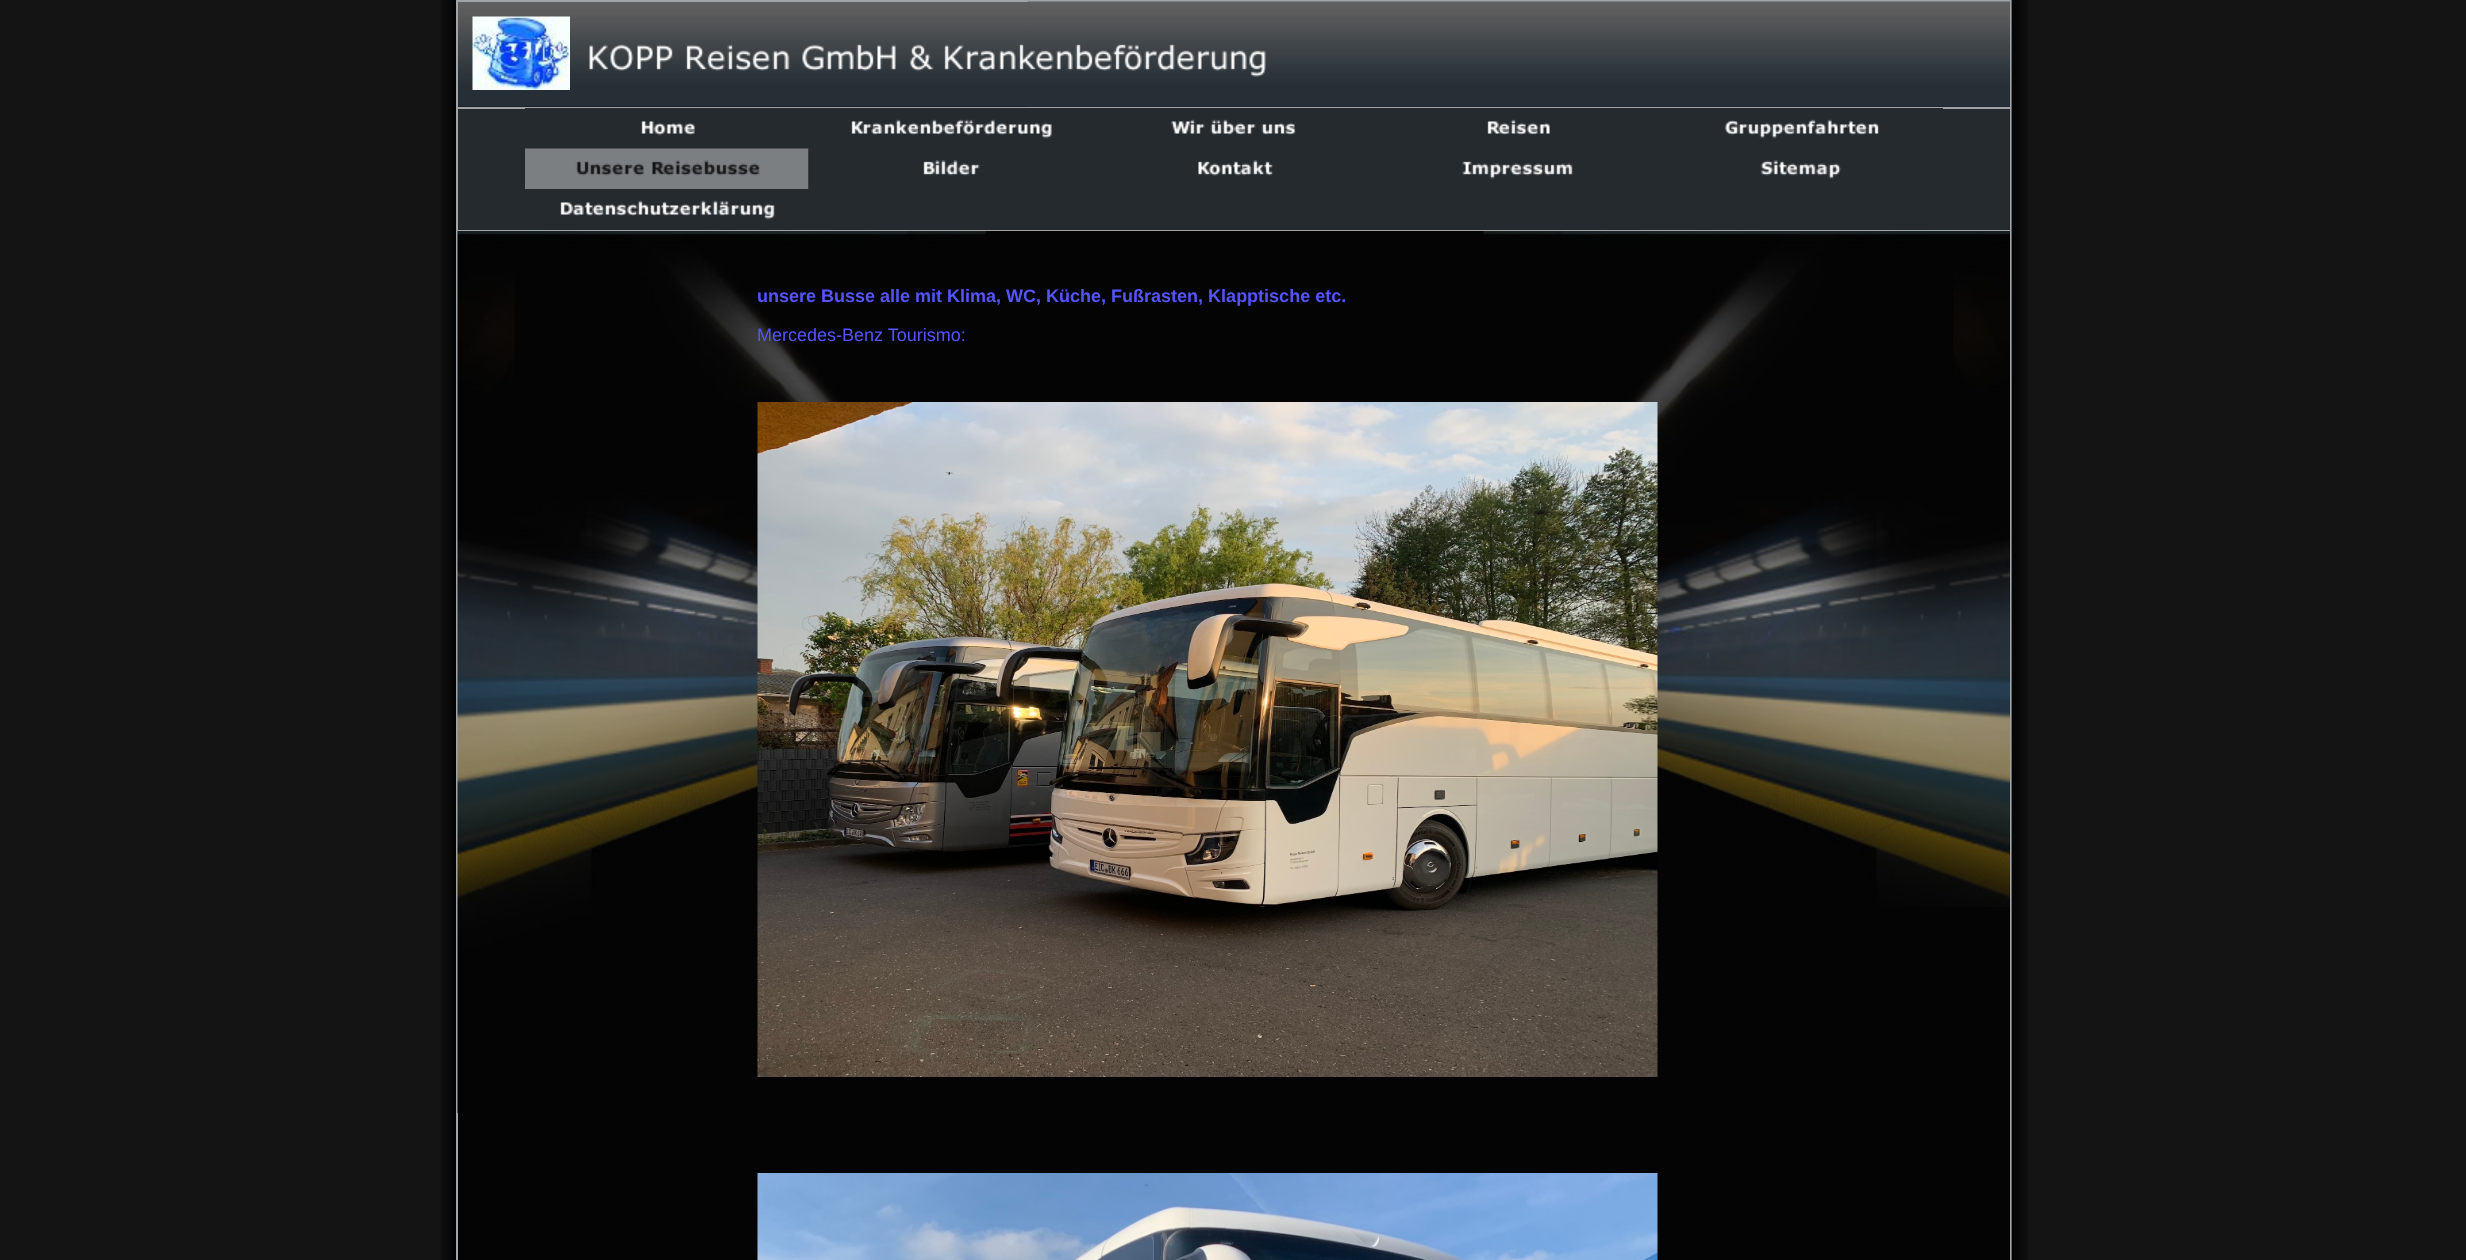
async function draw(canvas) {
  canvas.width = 2466;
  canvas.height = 1260;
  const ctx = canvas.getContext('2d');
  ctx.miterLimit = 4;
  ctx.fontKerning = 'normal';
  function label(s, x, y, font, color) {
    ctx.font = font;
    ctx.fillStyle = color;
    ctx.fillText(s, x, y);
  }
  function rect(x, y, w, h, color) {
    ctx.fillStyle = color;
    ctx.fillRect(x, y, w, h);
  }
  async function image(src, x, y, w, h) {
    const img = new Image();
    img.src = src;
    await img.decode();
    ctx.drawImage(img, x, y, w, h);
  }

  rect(0, 0, 2466, 1260, '#141414');
  await image('assets/img1.png', 441, 0, 15, 1260);
  await image('assets/img2.png', 458, 2, 1552, 105);
  rect(456, 0, 1556, 2, '#a0a4a7');
  rect(2010, 0, 2, 1260, '#a0a4a7');
  rect(456, 0, 2, 1260, '#a0a4a7');
  await image('assets/img3.png', 472, 16, 98, 74);
  await image('assets/img5.png', 1027, 1, 983, 106);
  await image('assets/img4.png', 589, 44, 677, 33);
  rect(458, 109, 1552, 121, '#252a2e');
  rect(458, 107, 1552, 2, '#a0a4a7');
  rect(458, 230, 1552, 1, '#a0a4a7');
  rect(525, 108, 1418, 1, '#252a2e');
  await image('assets/img6.png', 641, 121, 54, 15);
  await image('assets/img7.png', 851, 119, 201, 20);
  await image('assets/img8.png', 1171, 119, 125, 16);
  await image('assets/img9.png', 1487, 119, 63, 16);
  await image('assets/img10.png', 1724, 119, 155, 20);
  await image('assets/img11.png', 525, 148, 284, 41);
  await image('assets/img12.png', 808, 148, 172, 41);
  await image('assets/img13.png', 1198, 160, 75, 16);
  await image('assets/img14.png', 1462, 161, 111, 18);
  await image('assets/img15.png', 1760, 160, 81, 19);
  await image('assets/img16.png', 560, 200, 215, 20);
  rect(458, 231, 1552, 1029, '#040404');
  await image('assets/img17.png', 457, 231, 529, 882);
  await image('assets/img18.png', 1483, 231, 527, 676);
  label('unsere Busse alle mit Klima, WC, Küche, Fußrasten, Klapptische etc.', 757, 302, 'bold 18px Liberation Sans', '#55f');
  label('Mercedes-Benz Tourismo:', 757, 341, '18px Liberation Sans', '#55f');
  await image('assets/img19.png', 757, 402, 901, 675);
  await image('assets/img20.png', 757, 1173, 901, 87);
  await image('assets/img21.png', 2011, 0, 17, 1260);
}

draw(document.querySelector('canvas'));
